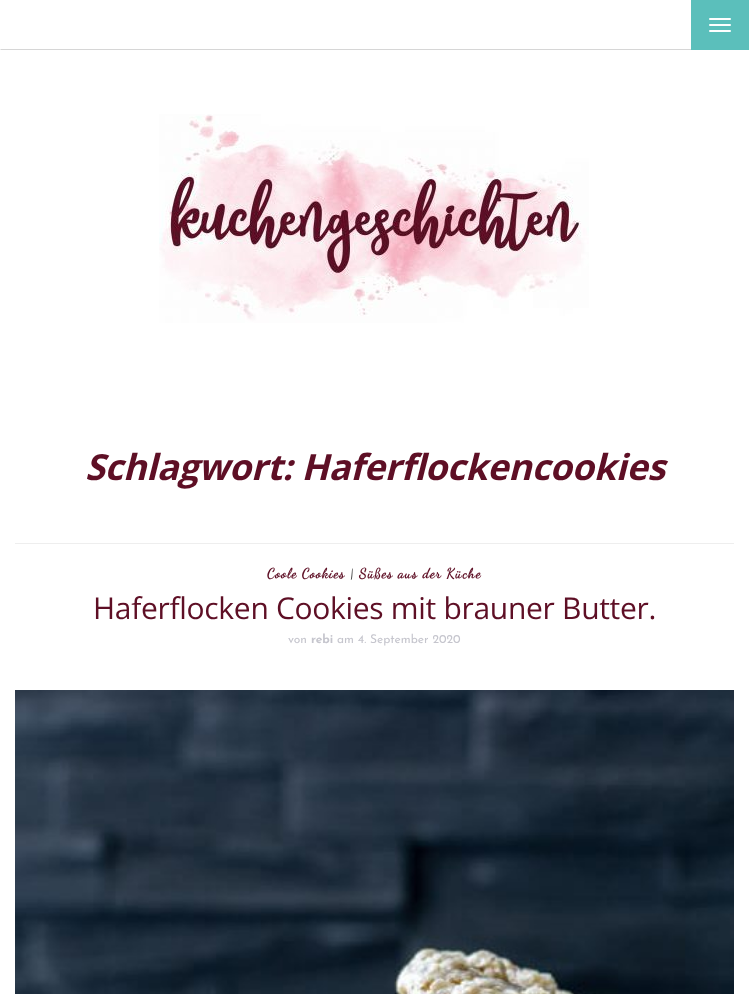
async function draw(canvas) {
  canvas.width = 749;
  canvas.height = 994;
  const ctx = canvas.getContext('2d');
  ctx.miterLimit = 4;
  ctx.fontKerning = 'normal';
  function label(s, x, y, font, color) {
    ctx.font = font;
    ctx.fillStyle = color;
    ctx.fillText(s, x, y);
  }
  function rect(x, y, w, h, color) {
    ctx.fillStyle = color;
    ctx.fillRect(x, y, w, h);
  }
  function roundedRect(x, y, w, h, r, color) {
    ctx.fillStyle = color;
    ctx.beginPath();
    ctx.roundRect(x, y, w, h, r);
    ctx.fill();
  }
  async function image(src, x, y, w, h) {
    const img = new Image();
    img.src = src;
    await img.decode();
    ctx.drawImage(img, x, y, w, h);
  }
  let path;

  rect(0, 0, 749, 994, '#fff');
  ctx.fillStyle = '#d6d6d6';
  path = new Path2D('M749 50H0L1 49H748Z');
  ctx.fill(path);
  rect(691, 0, 58, 50, '#5bbfbb');
  roundedRect(709, 18, 22, 2, 1, '#fff');
  roundedRect(709, 24, 22, 2, 1, '#fff');
  roundedRect(709, 30, 22, 2, 1, '#fff');
  await image('assets/img1.png', 159, 114, 430, 209);
  rect(15, 543, 719, 1, '#eee');
  ctx.letterSpacing = '-0.3px';
  label('Schlagwort: Haferflockencookies', 85, 480, 'italic bold 36px Open Sans', '#5e0f25');
  ctx.letterSpacing = '1px';
  label('Coole Cookies', 267, 578, 'bold 14px Dancing Script', '#5e0f25');
  label('|', 350, 578, '14px Dancing Script', '#333');
  label('Süßes aus der Küche', 359, 578, 'bold 14px Dancing Script', '#5e0f25');
  ctx.letterSpacing = '-0.3px';
  label('Haferflocken Cookies mit brauner Butter.', 93, 619, '30px Open Sans', '#5e0f25');
  ctx.letterSpacing = '0px';
  label('von', 288, 643, '12px Josefin Sans', '#c5c5cd');
  label('rebi', 311, 643, 'bold 12px Josefin Sans', '#c5c5cd');
  label('am 4. September 2020', 337, 643, '12px Josefin Sans', '#c5c5cd');
  await image('assets/img2.png', 15, 690, 719, 304);
}

draw(document.querySelector('canvas'));
